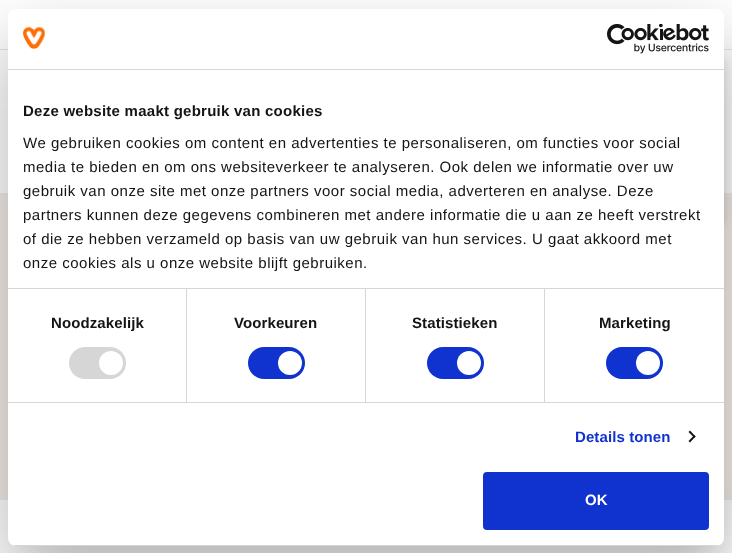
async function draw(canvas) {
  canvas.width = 732;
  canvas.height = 553;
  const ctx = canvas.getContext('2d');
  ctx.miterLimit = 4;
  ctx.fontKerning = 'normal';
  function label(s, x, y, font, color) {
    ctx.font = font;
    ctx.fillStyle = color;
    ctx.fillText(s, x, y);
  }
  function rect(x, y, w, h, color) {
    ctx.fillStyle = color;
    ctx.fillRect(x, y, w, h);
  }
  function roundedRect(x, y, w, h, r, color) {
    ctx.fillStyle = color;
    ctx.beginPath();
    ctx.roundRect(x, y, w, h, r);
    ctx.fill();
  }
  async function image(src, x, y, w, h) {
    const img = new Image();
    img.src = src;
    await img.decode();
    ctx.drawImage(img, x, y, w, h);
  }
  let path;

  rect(0, 0, 732, 553, '#fff');
  rect(0, 49, 732, 1, '#ede3db');
  rect(0, 193, 732, 307, '#f3ede8');
  ctx.fillStyle = '#0000001a';
  ctx.filter = 'blur(4px)';
  ctx.beginPath();
  ctx.roundRect(380, 58, 345, 168, 5);
  ctx.fill();
  ctx.filter = 'none';
  ctx.fillStyle = '#7d939d33';
  ctx.filter = 'blur(12px)';
  ctx.beginPath();
  ctx.roundRect(661, 486, 56, 56, 10);
  ctx.fill();
  ctx.filter = 'none';
  ctx.fillStyle = '#0000004d';
  ctx.filter = 'blur(34px)';
  ctx.beginPath();
  ctx.roundRect(8, 41, 716, 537, 8);
  ctx.fill();
  ctx.filter = 'none';
  roundedRect(8, 9, 716, 537, 8, '#fff');
  rect(8, 69, 716, 1, '#d6d6d6');
  await image('assets/img1.png', 23, 26, 22, 23);
  await image('assets/img2.png', 607, 24, 102, 30);
  rect(8, 288, 716, 1, '#d6d6d6');
  ctx.letterSpacing = '0.25px';
  label('Deze website maakt gebruik van cookies', 23, 116, 'bold 15px Liberation Sans', '#141414');
  ctx.letterSpacing = '0.5px';
  label('We gebruiken cookies om content en advertenties te personaliseren, om functies voor social', 23, 148, '15px Liberation Sans', '#141414');
  label('media te bieden en om ons websiteverkeer te analyseren. Ook delen we informatie over uw', 23, 172, '15px Liberation Sans', '#141414');
  label('gebruik van onze site met onze partners voor social media, adverteren en analyse. Deze', 23, 196, '15px Liberation Sans', '#141414');
  label('partners kunnen deze gegevens combineren met andere informatie die u aan ze heeft verstrekt', 23, 220, '15px Liberation Sans', '#141414');
  label('of die ze hebben verzameld op basis van uw gebruik van hun services. U gaat akkoord met', 23, 244, '15px Liberation Sans', '#141414');
  label('onze cookies als u onze website blijft gebruiken.', 23, 268, '15px Liberation Sans', '#141414');
  rect(8, 402, 716, 1, '#d6d6d6');
  rect(186, 289, 1, 113, '#d6d6d6');
  ctx.letterSpacing = '0.1px';
  label('Noodzakelijk', 51, 328, 'bold 15px Liberation Sans', '#141414');
  roundedRect(69, 347, 57, 32, 16, '#d6d6d6');
  ctx.fillStyle = '#fff';
  ctx.beginPath();
  ctx.arc(111, 363, 12, 0, 2 * Math.PI);
  ctx.fill();
  rect(365, 289, 1, 113, '#d6d6d6');
  label('Voorkeuren', 234, 328, 'bold 15px Liberation Sans', '#141414');
  roundedRect(248, 347, 57, 32, 16, '#1032cf');
  ctx.fillStyle = '#fff';
  ctx.beginPath();
  ctx.arc(290, 363, 12, 0, 2 * Math.PI);
  ctx.fill();
  rect(544, 289, 1, 113, '#d6d6d6');
  label('Statistieken', 412, 328, 'bold 15px Liberation Sans', '#141414');
  roundedRect(427, 347, 57, 32, 16, '#1032cf');
  ctx.fillStyle = '#fff';
  ctx.beginPath();
  ctx.arc(469, 363, 12, 0, 2 * Math.PI);
  ctx.fill();
  label('Marketing', 599, 328, 'bold 15px Liberation Sans', '#141414');
  roundedRect(606, 347, 57, 32, 16, '#1032cf');
  ctx.fillStyle = '#fff';
  ctx.beginPath();
  ctx.arc(648, 363, 12, 0, 2 * Math.PI);
  ctx.fill();
  label('Details tonen', 575, 442, 'bold 15px Liberation Sans', '#1032cf');
  ctx.fillStyle = '#141414';
  path = new Path2D('M690 430.5L695.5 436.5L694.5 438L688.5 432Z');
  ctx.fill(path);
  path = new Path2D('M694.5 435L695.5 436.5L690 442.5L688.5 441Z');
  ctx.fill(path);
  ctx.save();
  ctx.beginPath();
  ctx.roundRect(8, 9, 716, 537, 8);
  ctx.clip();
  rect(8, 545, 716, 1, '#d6d6d6');
  ctx.restore();
  ctx.fillStyle = '#1032cf';
  ctx.beginPath();
  ctx.roundRect(484, 473, 224, 56, 3);
  ctx.fill();
  ctx.strokeStyle = '#1032cf';
  ctx.lineWidth = 2;
  ctx.stroke();
  ctx.letterSpacing = '0px';
  label('OK', 585, 505, 'bold 15px Liberation Sans', '#fff');
}

draw(document.querySelector('canvas'));
